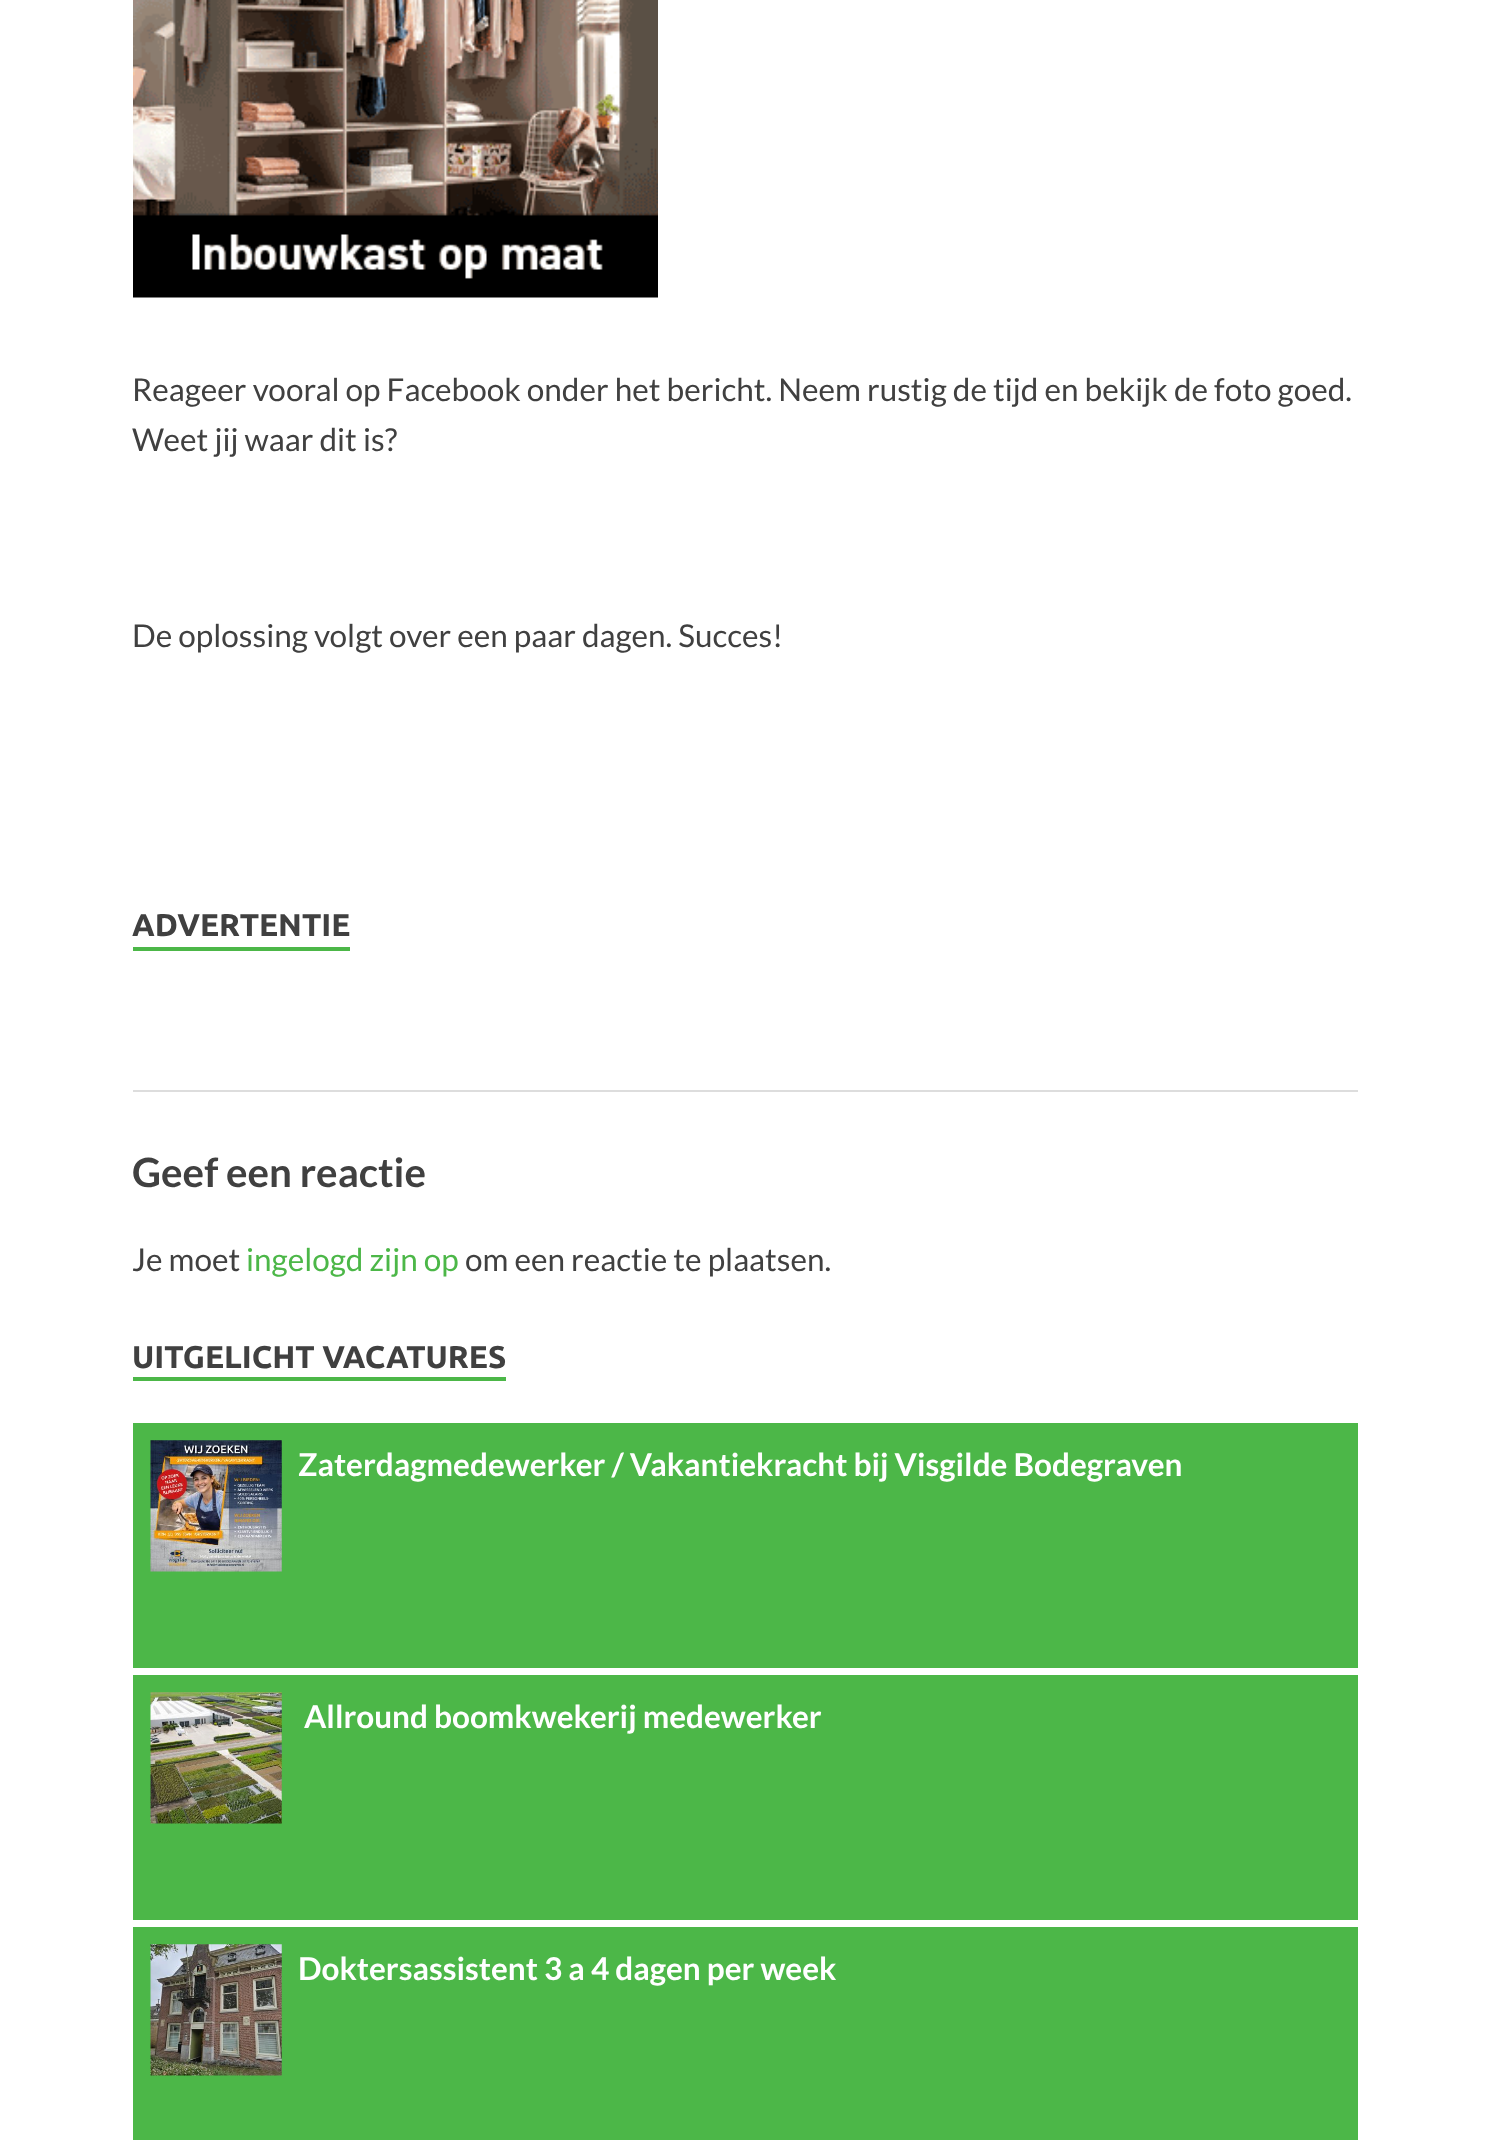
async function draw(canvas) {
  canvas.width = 1489;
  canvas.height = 2140;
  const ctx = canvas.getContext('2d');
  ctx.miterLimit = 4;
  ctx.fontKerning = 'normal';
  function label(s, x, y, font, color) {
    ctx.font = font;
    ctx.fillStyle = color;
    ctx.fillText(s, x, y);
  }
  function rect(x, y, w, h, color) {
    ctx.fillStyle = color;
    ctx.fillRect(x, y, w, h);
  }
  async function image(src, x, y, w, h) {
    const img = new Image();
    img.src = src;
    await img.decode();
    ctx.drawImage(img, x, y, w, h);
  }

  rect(0, 0, 1489, 2140, '#fff');
  await image('assets/img1.png', 133, 0, 525, 298);
  label('Reageer vooral op Facebook onder het bericht. Neem rustig de tijd en bekijk de foto goed.', 132, 401, '31.5px Lato', '#404040');
  label('Weet jij waar dit is?', 132, 451, '31.5px Lato', '#404040');
  label('De oplossing volgt over een paar dagen. Succes!', 132, 647, '31.5px Lato', '#404040');
  rect(133, 947, 217, 4, '#4cb748');
  label('ADVERTENTIE', 132, 936, 'bold 31.5px Ubuntu', '#404040');
  rect(133, 1090, 1225, 2, '#ddd');
  label('Geef een reactie', 132, 1187, 'bold 40.25px Lato', '#404040');
  label('Je moet', 132, 1271, '31.5px Lato', '#404040');
  label('ingelogd zijn op', 246, 1271, '31.5px Lato', '#4cb748');
  label('om een reactie te plaatsen.', 465, 1271, '31.5px Lato', '#404040');
  rect(133, 1377, 373, 4, '#4cb748');
  label('UITGELICHT VACATURES', 132, 1368, 'bold 31.5px Ubuntu', '#404040');
  rect(133, 1423, 1225, 245, '#4cb748');
  await image('assets/img2.png', 150, 1440, 132, 132);
  label('Zaterdagmedewerker / Vakantiekracht bij Visgilde Bodegraven', 298, 1476, 'bold 31.5px Lato', '#fff');
  rect(133, 1675, 1225, 245, '#4cb748');
  await image('assets/img3.png', 150, 1692, 132, 132);
  label('Allround boomkwekerij medewerker', 304, 1728, 'bold 31.5px Lato', '#fff');
  rect(133, 1927, 1225, 213, '#4cb748');
  await image('assets/img4.png', 150, 1944, 132, 132);
  label('Doktersassistent 3 a 4 dagen per week', 298, 1980, 'bold 31.5px Lato', '#fff');
}

draw(document.querySelector('canvas'));
